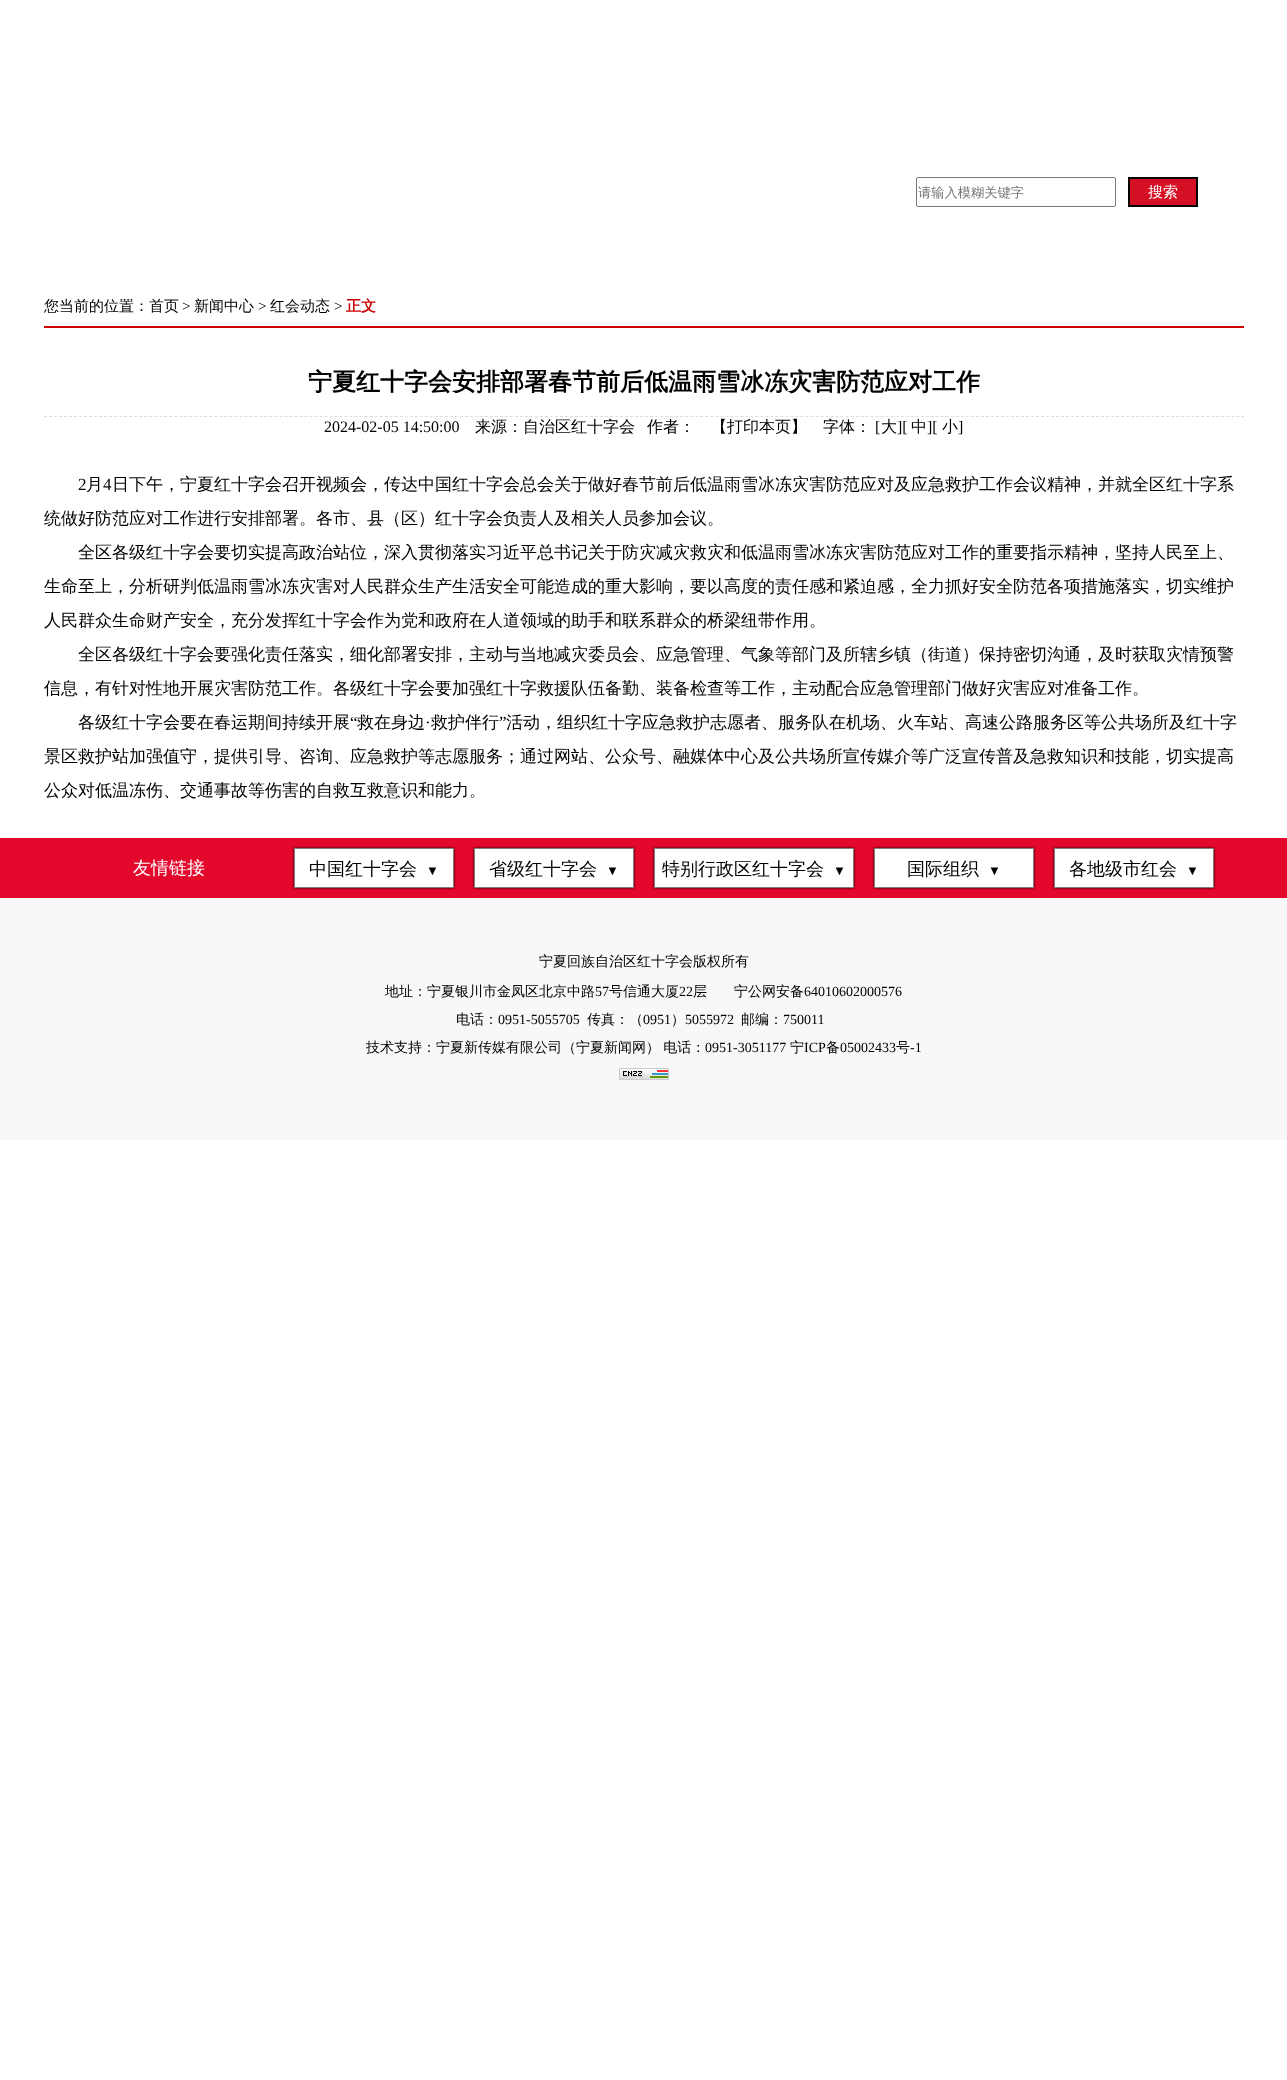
async function draw(canvas) {
  canvas.width = 1287;
  canvas.height = 2080;
  const ctx = canvas.getContext('2d');
  ctx.miterLimit = 4;
  ctx.fontKerning = 'normal';
  function label(s, x, y, font, color) {
    ctx.font = font;
    ctx.fillStyle = color;
    ctx.fillText(s, x, y);
  }
  function rect(x, y, w, h, color) {
    ctx.fillStyle = color;
    ctx.fillRect(x, y, w, h);
  }
  async function image(src, x, y, w, h) {
    const img = new Image();
    img.src = src;
    await img.decode();
    ctx.drawImage(img, x, y, w, h);
  }
  let path;

  rect(0, 0, 1287, 2080, '#fff');
  ctx.beginPath();
  ctx.roundRect(916.5, 177.5, 199, 29, 1.5);
  ctx.strokeStyle = '#767676';
  ctx.stroke();
  label('请输入模糊关键字', 918, 197, '500 13.25px WenQuanYi Zen Hei', '#757575');
  ctx.fillStyle = '#d61024';
  ctx.beginPath();
  ctx.rect(1129, 178, 68, 28);
  ctx.fill();
  ctx.strokeStyle = '#000';
  ctx.lineWidth = 2;
  ctx.stroke();
  label('搜索', 1148, 197, '500 15px WenQuanYi Zen Hei', '#fff');
  rect(44, 326, 1200, 2, '#c00');
  label('您当前的位置：首页', 44, 311, '500 15px WenQuanYi Zen Hei', '#000');
  label('>', 182, 311, '15px Liberation Serif', '#000');
  label('新闻中心', 194, 311, '500 15px WenQuanYi Zen Hei', '#000');
  label('>', 258, 311, '15px Liberation Serif', '#000');
  label('红会动态', 270, 311, '500 15px WenQuanYi Zen Hei', '#000');
  label('>', 334, 311, '15px Liberation Serif', '#000');
  label('正文', 346, 311, 'bold 15px WenQuanYi Zen Hei', '#c00');
  label('宁夏红十字会安排部署春节前后低温雨雪冰冻灾害防范应对工作', 308, 390, 'bold 24px WenQuanYi Zen Hei', '#000');
  path = new Path2D('M44 416.5H1244');
  ctx.strokeStyle = '#ddd';
  ctx.lineWidth = 1;
  ctx.setLineDash([3, 2.01]);
  ctx.stroke(path);
  label('2024-02-05 14:50:00', 324, 432, '16px Liberation Serif', '#000');
  label('来源：自治区红十字会', 475, 432, '500 16px WenQuanYi Zen Hei', '#000');
  label('作者：', 647, 432, '500 16px WenQuanYi Zen Hei', '#000');
  label('【打印本页】', 711, 432, '500 16px WenQuanYi Zen Hei', '#000');
  label('字体：', 823, 432, '500 16px WenQuanYi Zen Hei', '#000');
  label('[', 875, 432, '16px Liberation Serif', '#000');
  label('大', 881, 432, '500 16px WenQuanYi Zen Hei', '#000');
  label('][', 897, 432, '16px Liberation Serif', '#000');
  label('中', 911, 432, '500 16px WenQuanYi Zen Hei', '#000');
  label('][', 927, 432, '16px Liberation Serif', '#000');
  label('小', 942, 432, '500 16px WenQuanYi Zen Hei', '#000');
  label(']', 958, 432, '16px Liberation Serif', '#000');
  label('2', 78, 490, '17px Liberation Serif', '#000');
  label('月', 86, 490, '500 17px WenQuanYi Zen Hei', '#000');
  label('4', 103, 490, '17px Liberation Serif', '#000');
  label('日下午，宁夏红十字会召开视频会，传达中国红十字会总会关于做好春节前后低温雨雪冰冻灾害防范应对及应急救护工作会议精神，并就全区红十字系', 112, 490, '500 17px WenQuanYi Zen Hei', '#000');
  label('统做好防范应对工作进行安排部署。各市、县（区）红十字会负责人及相关人员参加会议。', 44, 524, '500 17px WenQuanYi Zen Hei', '#000');
  label('全区各级红十字会要切实提高政治站位，深入贯彻落实习近平总书记关于防灾减灾救灾和低温雨雪冰冻灾害防范应对工作的重要指示精神，坚持人民至上、', 78, 558, '500 17px WenQuanYi Zen Hei', '#000');
  label('生命至上，分析研判低温雨雪冰冻灾害对人民群众生产生活安全可能造成的重大影响，要以高度的责任感和紧迫感，全力抓好安全防范各项措施落实，切实维护', 44, 592, '500 17px WenQuanYi Zen Hei', '#000');
  label('人民群众生命财产安全，充分发挥红十字会作为党和政府在人道领域的助手和联系群众的桥梁纽带作用。', 44, 626, '500 17px WenQuanYi Zen Hei', '#000');
  label('全区各级红十字会要强化责任落实，细化部署安排，主动与当地减灾委员会、应急管理、气象等部门及所辖乡镇（街道）保持密切沟通，及时获取灾情预警', 78, 660, '500 17px WenQuanYi Zen Hei', '#000');
  label('信息，有针对性地开展灾害防范工作。各级红十字会要加强红十字救援队伍备勤、装备检查等工作，主动配合应急管理部门做好灾害应对准备工作。', 44, 694, '500 17px WenQuanYi Zen Hei', '#000');
  label('各级红十字会要在春运期间持续开展', 78, 728, '500 17px WenQuanYi Zen Hei', '#000');
  label('“', 350, 728, '17px Liberation Serif', '#000');
  label('救在身边', 357, 728, '500 17px WenQuanYi Zen Hei', '#000');
  label('救护伴行', 431, 728, '500 17px WenQuanYi Zen Hei', '#000');
  label('”', 499, 728, '17px Liberation Serif', '#000');
  label('活动，组织红十字应急救护志愿者、服务队在机场、火车站、高速公路服务区等公共场所及红十字', 506, 728, '500 17px WenQuanYi Zen Hei', '#000');
  label('·', 425, 728, '17px Liberation Serif', '#000');
  label('景区救护站加强值守，提供引导、咨询、应急救护等志愿服务；通过网站、公众号、融媒体中心及公共场所宣传媒介等广泛宣传普及急救知识和技能，切实提高', 44, 762, '500 17px WenQuanYi Zen Hei', '#000');
  label('公众对低温冻伤、交通事故等伤害的自救互救意识和能力。', 44, 796, '500 17px WenQuanYi Zen Hei', '#000');
  rect(0, 898, 1287, 242, '#f8f8f8');
  rect(0, 838, 1287, 60, '#e4072c');
  label('友情链接', 133, 874, '500 18px WenQuanYi Zen Hei', '#fff');
  ctx.fillStyle = '#000';
  ctx.filter = 'blur(1px)';
  ctx.beginPath();
  ctx.rect(294, 848, 160, 40);
  ctx.fill();
  ctx.filter = 'none';
  ctx.fillStyle = '#fff';
  ctx.beginPath();
  ctx.rect(294.5, 848.5, 159, 39);
  ctx.fill();
  ctx.strokeStyle = '#808080';
  ctx.setLineDash([]);
  ctx.stroke();
  label('中国红十字会', 309, 875, '500 18px WenQuanYi Zen Hei', '#000');
  label('▼', 426, 875, '13px Liberation Serif', '#000');
  ctx.filter = 'blur(1px)';
  ctx.beginPath();
  ctx.rect(474, 848, 160, 40);
  ctx.fill();
  ctx.filter = 'none';
  ctx.fillStyle = '#fff';
  ctx.beginPath();
  ctx.rect(474.5, 848.5, 159, 39);
  ctx.fill();
  ctx.stroke();
  label('省级红十字会', 489, 875, '500 18px WenQuanYi Zen Hei', '#000');
  label('▼', 606, 875, '13px Liberation Serif', '#000');
  ctx.filter = 'blur(1px)';
  ctx.beginPath();
  ctx.rect(654, 848, 200, 40);
  ctx.fill();
  ctx.filter = 'none';
  ctx.fillStyle = '#fff';
  ctx.beginPath();
  ctx.rect(654.5, 848.5, 199, 39);
  ctx.fill();
  ctx.stroke();
  label('特别行政区红十字会', 662, 875, '500 18px WenQuanYi Zen Hei', '#000');
  label('▼', 833, 875, '13px Liberation Serif', '#000');
  ctx.filter = 'blur(1px)';
  ctx.beginPath();
  ctx.rect(874, 848, 160, 40);
  ctx.fill();
  ctx.filter = 'none';
  ctx.fillStyle = '#fff';
  ctx.beginPath();
  ctx.rect(874.5, 848.5, 159, 39);
  ctx.fill();
  ctx.stroke();
  label('国际组织', 907, 875, '500 18px WenQuanYi Zen Hei', '#000');
  label('▼', 988, 875, '13px Liberation Serif', '#000');
  ctx.filter = 'blur(1px)';
  ctx.beginPath();
  ctx.rect(1054, 848, 160, 40);
  ctx.fill();
  ctx.filter = 'none';
  ctx.fillStyle = '#fff';
  ctx.beginPath();
  ctx.rect(1054.5, 848.5, 159, 39);
  ctx.fill();
  ctx.stroke();
  label('各地级市红会', 1069, 875, '500 18px WenQuanYi Zen Hei', '#000');
  label('▼', 1186, 875, '13px Liberation Serif', '#000');
  label('宁夏回族自治区红十字会版权所有', 539, 966, '500 14px WenQuanYi Zen Hei', '#000');
  label('地址：宁夏银川市金凤区北京中路', 385, 996, '500 14px WenQuanYi Zen Hei', '#000');
  label('57', 595, 996, '14px Liberation Serif', '#000');
  label('号信通大厦', 609, 996, '500 14px WenQuanYi Zen Hei', '#000');
  label('22', 679, 996, '14px Liberation Serif', '#000');
  label('层', 693, 996, '500 14px WenQuanYi Zen Hei', '#000');
  label('宁公网安备', 734, 996, '500 14px WenQuanYi Zen Hei', '#000');
  label('64010602000576', 804, 996, '14px Liberation Serif', '#000');
  label('电话：', 456, 1024, '500 14px WenQuanYi Zen Hei', '#000');
  label('0951-5055705', 498, 1024, '14px Liberation Serif', '#000');
  label('传真：（', 587, 1024, '500 14px WenQuanYi Zen Hei', '#000');
  label('0951', 643, 1024, '14px Liberation Serif', '#000');
  label('）', 671, 1024, '500 14px WenQuanYi Zen Hei', '#000');
  label('5055972', 685, 1024, '14px Liberation Serif', '#000');
  label('邮编：', 741, 1024, '500 14px WenQuanYi Zen Hei', '#000');
  label('750011', 783, 1024, '14px Liberation Serif', '#000');
  ctx.wordSpacing = '-1px';
  label('技术支持：宁夏新传媒有限公司（宁夏新闻网） 电话：', 366, 1052, '500 14px WenQuanYi Zen Hei', '#000');
  ctx.wordSpacing = '0px';
  label('0951-3051177', 705, 1052, '14px Liberation Serif', '#000');
  label('宁', 790, 1052, '500 14px WenQuanYi Zen Hei', '#000');
  label('ICP', 804, 1052, '14px Liberation Serif', '#000');
  label('备', 826, 1052, '500 14px WenQuanYi Zen Hei', '#000');
  label('05002433', 840, 1052, '14px Liberation Serif', '#000');
  label('号', 896, 1052, '500 14px WenQuanYi Zen Hei', '#000');
  label('-1', 910, 1052, '14px Liberation Serif', '#000');
  await image('assets/img1.png', 619, 1068, 50, 12);
}

draw(document.querySelector('canvas'));
